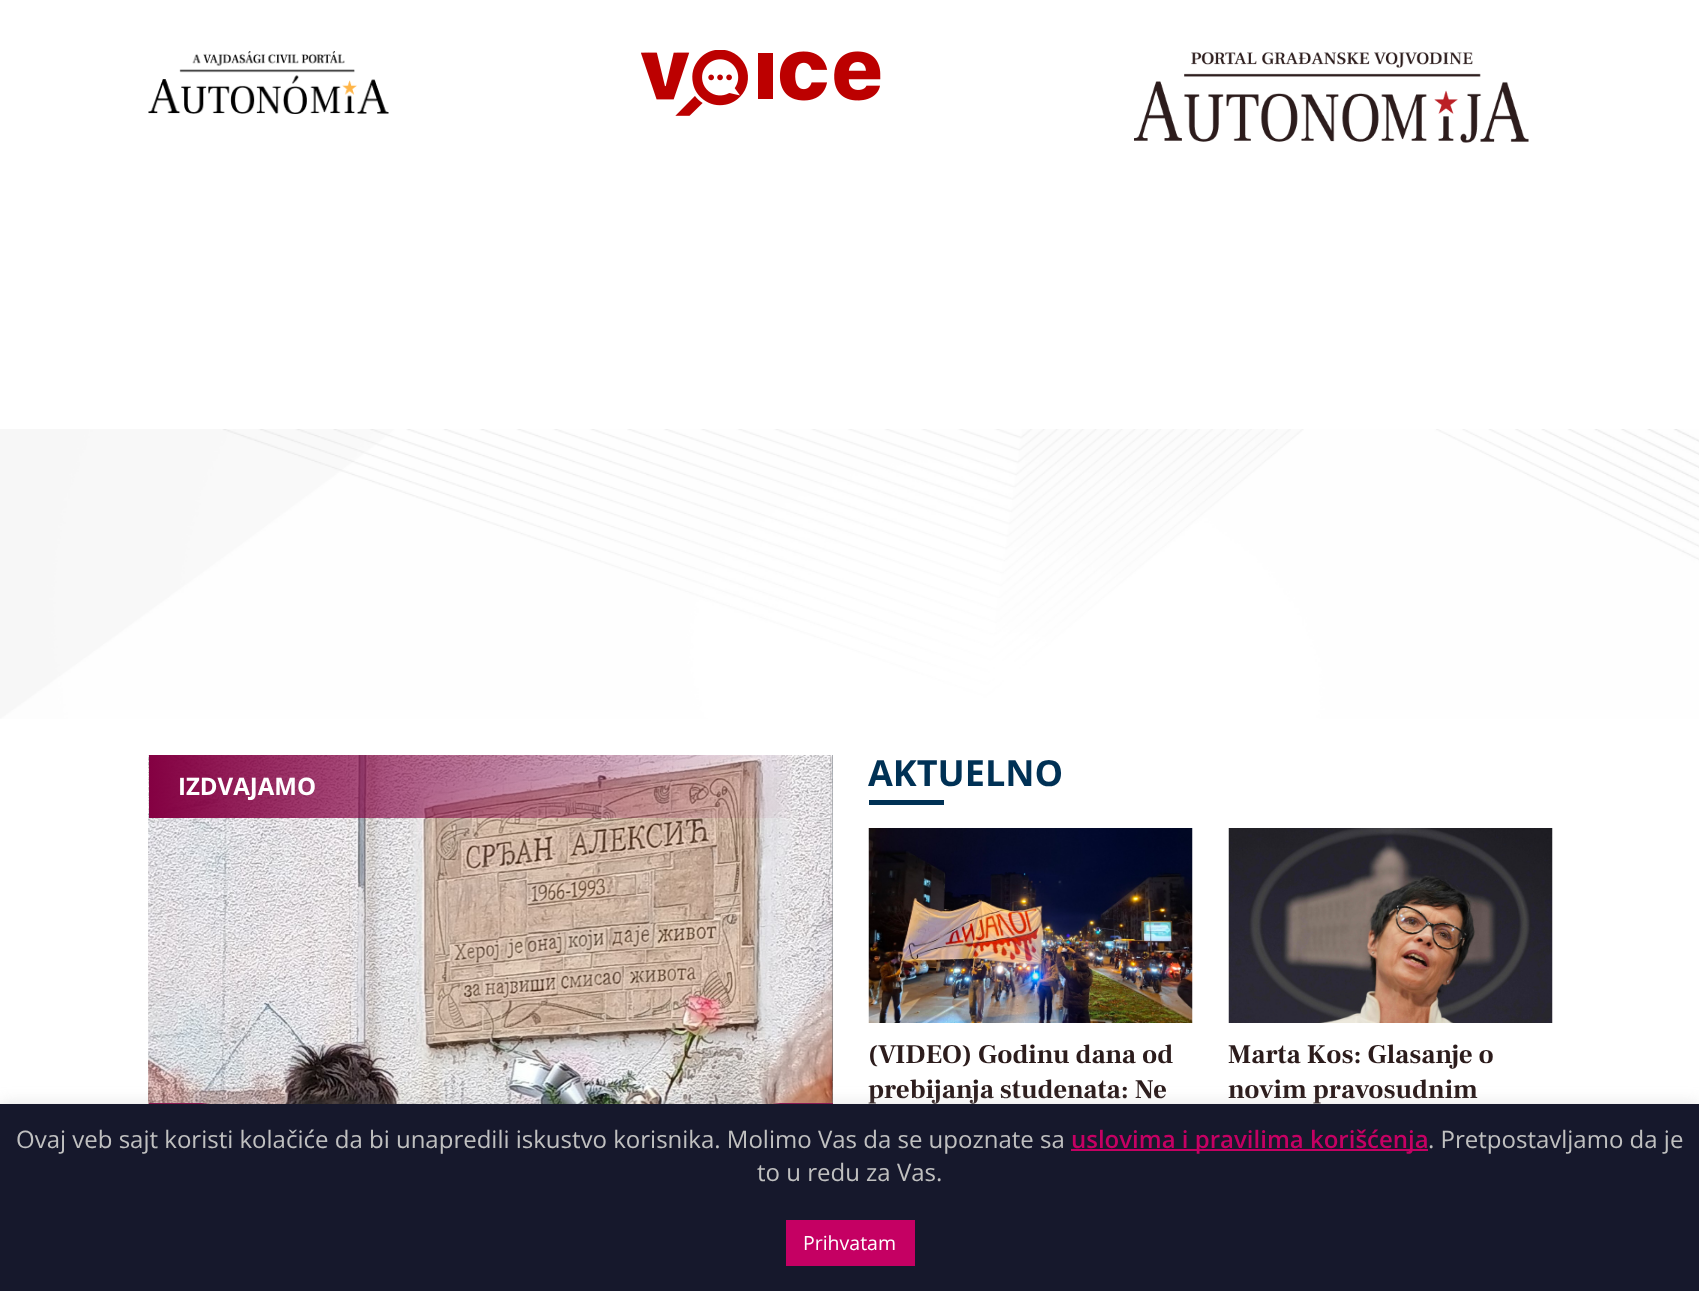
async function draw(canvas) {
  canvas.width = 1699;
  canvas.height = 1291;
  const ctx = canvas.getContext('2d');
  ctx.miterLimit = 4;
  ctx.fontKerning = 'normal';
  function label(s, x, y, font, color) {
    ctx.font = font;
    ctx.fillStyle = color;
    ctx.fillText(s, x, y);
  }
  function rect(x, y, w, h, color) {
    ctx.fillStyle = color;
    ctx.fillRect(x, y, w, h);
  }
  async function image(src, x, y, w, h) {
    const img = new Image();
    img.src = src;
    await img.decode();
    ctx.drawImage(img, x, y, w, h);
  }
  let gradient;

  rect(0, 0, 1699, 1291, '#fff');
  await image('assets/img1.png', 148, 51, 241, 63);
  await image('assets/img2.png', 641, 50, 240, 66);
  await image('assets/img3.png', 1134, 52, 395, 91);
  await image('assets/img4.png', 0, 429, 1699, 290);
  await image('assets/img5.png', 148, 755, 685, 349);
  await image('assets/img6.png', 832, 755, 1, 348);
  ctx.fillStyle = '#840042';
  ctx.beginPath();
  ctx.roundRect(149, 1103, 87, 69, [0, 34.5, 34.5, 0]);
  ctx.fill();
  ctx.beginPath();
  ctx.roundRect(746, 1103, 87, 69, [34.5, 0, 0, 34.5]);
  ctx.fill();
  gradient = ctx.createLinearGradient(149, 786, 833, 786);
  gradient.addColorStop(0, '#840042');
  gradient.addColorStop(0.96, '#84004200');
  ctx.fillStyle = gradient;
  ctx.fillRect(149, 755, 643, 63);
  label('IZDVAJAMO', 178, 795, 'bold 24px Open Sans', '#fff');
  label('AKTUELNO', 868, 786, 'bold 36px Open Sans', '#003155');
  rect(869, 800, 75, 5, '#003155');
  await image('assets/img7.png', 868, 828, 325, 195);
  label('(VIDEO) Godinu dana od', 868, 1063, 'bold 26.9px Frank Ruhl Libre', '#2c1c1c');
  label('prebijanja studenata: Ne', 868, 1098, 'bold 26.9px Frank Ruhl Libre', '#2c1c1c');
  await image('assets/img8.png', 1228, 828, 325, 195);
  label('Marta Kos: Glasanje o', 1228, 1063, 'bold 26.9px Frank Ruhl Libre', '#2c1c1c');
  label('novim pravosudnim', 1228, 1098, 'bold 26.9px Frank Ruhl Libre', '#2c1c1c');
  ctx.fillStyle = '#acabab4d';
  ctx.filter = 'blur(7.5px)';
  ctx.beginPath();
  ctx.rect(0, 1103, 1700, 187);
  ctx.fill();
  ctx.filter = 'none';
  rect(0, 1104, 1699, 187, '#16182c');
  label('Ovaj veb sajt koristi kolačiće da bi unapredili iskustvo korisnika. Molimo Vas da se upoznate sa', 16, 1148, '24px Open Sans', '#c0c0c0');
  rect(1071, 1149, 357, 2, '#c50063');
  label('uslovima i pravilima korišćenja', 1071, 1148, '600 24px Open Sans', '#c50063');
  label('. Pretpostavljamo da je', 1428, 1148, '24px Open Sans', '#c0c0c0');
  label('to u redu za Vas.', 757, 1181, '24px Open Sans', '#c0c0c0');
  rect(786, 1220, 129, 46, '#c50063');
  label('Prihvatam', 803, 1250, '19.5px Open Sans', '#fff');
}

draw(document.querySelector('canvas'));
